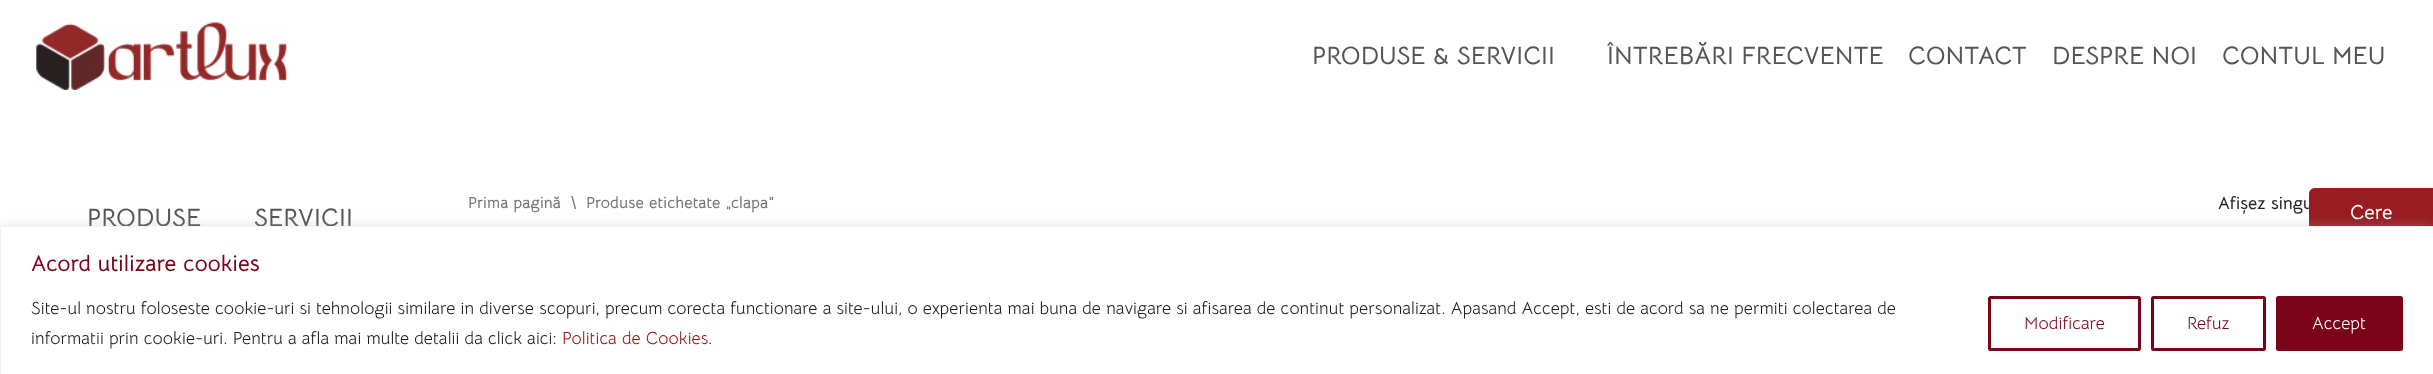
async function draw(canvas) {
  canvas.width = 2433;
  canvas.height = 374;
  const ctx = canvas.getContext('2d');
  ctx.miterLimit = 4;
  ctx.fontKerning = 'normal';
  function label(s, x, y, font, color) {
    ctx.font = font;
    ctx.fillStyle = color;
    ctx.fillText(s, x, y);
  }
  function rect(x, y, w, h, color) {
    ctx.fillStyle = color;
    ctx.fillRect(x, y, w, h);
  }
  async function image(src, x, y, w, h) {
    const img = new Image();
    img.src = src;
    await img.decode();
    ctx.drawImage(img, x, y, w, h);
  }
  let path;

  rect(0, 0, 2433, 374, '#fff');
  await image('assets/img1.png', 36, 22, 251, 68);
  label('PRODUSE & SERVICII', 1312, 64, 'bold 25px Bellota Text', '#555');
  label('ÎNTREBĂRI FRECVENTE', 1607, 64, 'bold 25px Bellota Text', '#555');
  label('CONTACT', 1908, 64, 'bold 25px Bellota Text', '#555');
  label('DESPRE NOI', 2052, 64, 'bold 25px Bellota Text', '#555');
  label('CONTUL MEU', 2222, 64, 'bold 25px Bellota Text', '#555');
  ctx.letterSpacing = '0.12px';
  label('Prima pagină', 468, 208, 'bold 16.1px Bellota Text', '#767676');
  label('\\', 571, 208, 'bold 16.1px Bellota Text', '#767676');
  label('Produse etichetate „clapa”', 586, 208, 'bold 16.1px Bellota Text', '#767676');
  label('Afișez singu', 2218, 209, 'bold 17.5px Bellota Text', '#272626');
  label('PRODUSE', 87, 226, 'bold 25px Bellota Text', '#555');
  label('SERVICII', 254, 226, 'bold 25px Bellota Text', '#555');
  ctx.fillStyle = '#991c22';
  path = new Path2D('M2315 188H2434V269H2315C2311.5 269 2309 266.5 2309 263V194C2309 190.5 2311.5 188 2315 188Z');
  ctx.fill(path);
  label('Cere', 2350, 219, 'bold 20px Bellota Text', '#fff');
  ctx.fillStyle = '#acabab4d';
  ctx.filter = 'blur(6px)';
  ctx.beginPath();
  ctx.rect(0, 225, 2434, 149);
  ctx.fill();
  ctx.filter = 'none';
  ctx.fillStyle = '#fff';
  ctx.beginPath();
  ctx.rect(0.5, 226.5, 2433, 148);
  ctx.fill();
  ctx.strokeStyle = '#f4f4f4';
  ctx.stroke();
  label('Acord utilizare cookies', 31, 271, 'bold 22.5px Bellota Text', '#7b0419');
  label('Site-ul nostru foloseste cookie-uri si tehnologii similare in diverse scopuri, precum corecta functionare a site-ului, o experienta mai buna de navigare si afisarea de continut personalizat. Apasand Accept, esti de acord sa ne permiti colectarea de', 31, 314, '17.5px Bellota Text', '#212121');
  label('informatii prin cookie-uri. Pentru a afla mai multe detalii da click aici:', 31, 344, '17.5px Bellota Text', '#212121');
  label('Politica de Cookies', 562, 344, '17.5px Bellota Text', '#8d0f0f');
  label('.', 708, 344, '17.5px Bellota Text', '#212121');
  ctx.beginPath();
  ctx.roundRect(1989.5, 297.5, 150, 52, 1);
  ctx.strokeStyle = '#7b0419';
  ctx.lineWidth = 3;
  ctx.stroke();
  label('Modificare', 2024, 329, '17.5px Bellota Text', '#7b0419');
  ctx.beginPath();
  ctx.roundRect(2152.5, 297.5, 112, 52, 1);
  ctx.stroke();
  label('Refuz', 2187, 329, '17.5px Bellota Text', '#7b0419');
  ctx.beginPath();
  ctx.roundRect(2277.5, 297.5, 124, 52, 1);
  ctx.fill();
  ctx.stroke();
  label('Accept', 2312, 329, '17.5px Bellota Text', '#fff');
}

draw(document.querySelector('canvas'));
